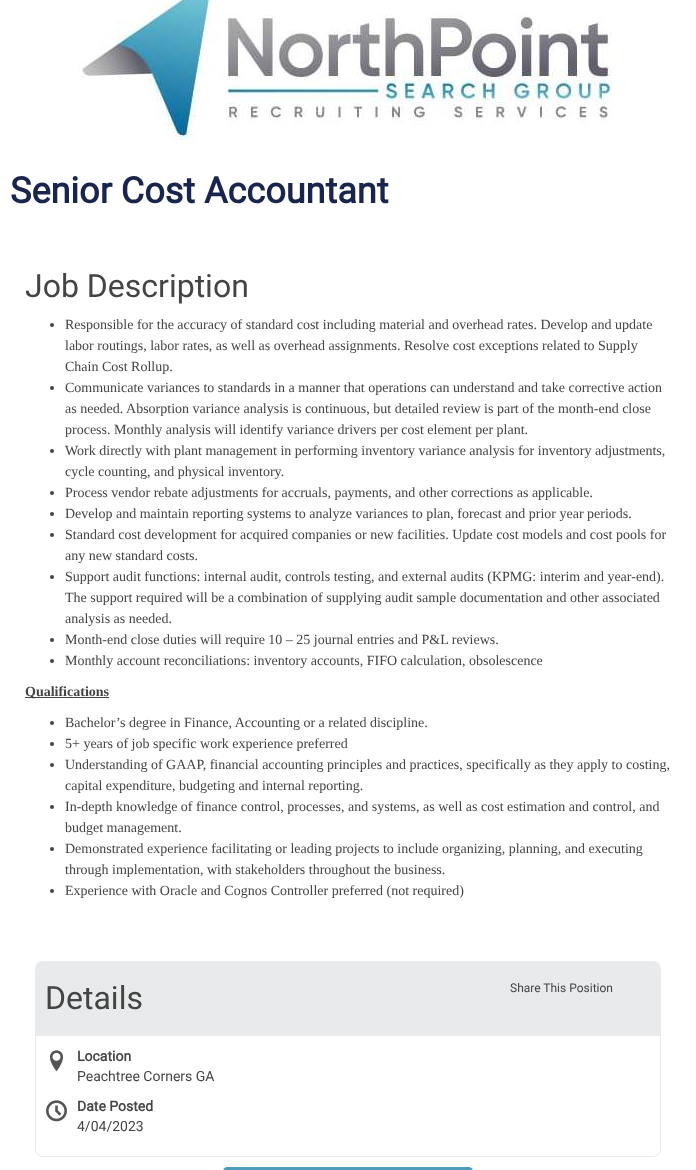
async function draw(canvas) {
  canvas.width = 696;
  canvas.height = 1170;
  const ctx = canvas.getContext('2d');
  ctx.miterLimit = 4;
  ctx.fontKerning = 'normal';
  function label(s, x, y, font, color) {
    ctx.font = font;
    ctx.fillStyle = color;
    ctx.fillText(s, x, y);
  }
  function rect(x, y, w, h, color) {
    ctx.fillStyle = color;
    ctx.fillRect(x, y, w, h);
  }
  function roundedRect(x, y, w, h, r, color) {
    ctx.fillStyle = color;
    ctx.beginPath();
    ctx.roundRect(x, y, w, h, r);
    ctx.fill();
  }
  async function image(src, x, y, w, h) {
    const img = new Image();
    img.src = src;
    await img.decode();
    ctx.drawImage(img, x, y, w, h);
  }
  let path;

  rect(0, 0, 696, 1170, '#fff');
  await image('assets/img1.png', 76, 0, 536, 144);
  label('Senior Cost Accountant', 10, 203, 'bold 36px Roboto', '#19254c');
  label('Job Description', 25, 297, '32px Roboto', '#444');
  ctx.beginPath();
  ctx.arc(52, 325, 2, 0, 2 * Math.PI);
  ctx.fill();
  label('Responsible for the accuracy of standard cost including material and overhead rates. Develop and update', 65, 329, '14px Liberation Serif', '#444');
  label('labor routings, labor rates, as well as overhead assignments. Resolve cost exceptions related to Supply', 65, 350, '14px Liberation Serif', '#444');
  label('Chain Cost Rollup.', 65, 371, '14px Liberation Serif', '#444');
  ctx.beginPath();
  ctx.arc(52, 388, 2, 0, 2 * Math.PI);
  ctx.fill();
  label('Communicate variances to standards in a manner that operations can understand and take corrective action', 65, 392, '14px Liberation Serif', '#444');
  label('as needed. Absorption variance analysis is continuous, but detailed review is part of the month-end close', 65, 413, '14px Liberation Serif', '#444');
  label('process. Monthly analysis will identify variance drivers per cost element per plant.', 65, 434, '14px Liberation Serif', '#444');
  ctx.beginPath();
  ctx.arc(52, 451, 2, 0, 2 * Math.PI);
  ctx.fill();
  label('Work directly with plant management in performing inventory variance analysis for inventory adjustments,', 65, 455, '14px Liberation Serif', '#444');
  label('cycle counting, and physical inventory.', 65, 476, '14px Liberation Serif', '#444');
  ctx.beginPath();
  ctx.arc(52, 493, 2, 0, 2 * Math.PI);
  ctx.fill();
  label('Process vendor rebate adjustments for accruals, payments, and other corrections as applicable.', 65, 497, '14px Liberation Serif', '#444');
  ctx.beginPath();
  ctx.arc(52, 514, 2, 0, 2 * Math.PI);
  ctx.fill();
  label('Develop and maintain reporting systems to analyze variances to plan, forecast and prior year periods.', 65, 518, '14px Liberation Serif', '#444');
  ctx.beginPath();
  ctx.arc(52, 535, 2, 0, 2 * Math.PI);
  ctx.fill();
  label('Standard cost development for acquired companies or new facilities. Update cost models and cost pools for', 65, 539, '14px Liberation Serif', '#444');
  label('any new standard costs.', 65, 560, '14px Liberation Serif', '#444');
  ctx.beginPath();
  ctx.arc(52, 577, 2, 0, 2 * Math.PI);
  ctx.fill();
  label('Support audit functions: internal audit, controls testing, and external audits (KPMG: interim and year-end).', 65, 581, '14px Liberation Serif', '#444');
  label('The support required will be a combination of supplying audit sample documentation and other associated', 65, 602, '14px Liberation Serif', '#444');
  label('analysis as needed.', 65, 623, '14px Liberation Serif', '#444');
  ctx.beginPath();
  ctx.arc(52, 640, 2, 0, 2 * Math.PI);
  ctx.fill();
  label('Month-end close duties will require 10 – 25 journal entries and P&L reviews.', 65, 644, '14px Liberation Serif', '#444');
  ctx.beginPath();
  ctx.arc(52, 661, 2, 0, 2 * Math.PI);
  ctx.fill();
  label('Monthly account reconciliations: inventory accounts, FIFO calculation, obsolescence', 65, 665, '14px Liberation Serif', '#444');
  rect(25, 697, 84, 1, '#444');
  label('Qualifications', 25, 696, 'bold 14px Liberation Serif', '#444');
  ctx.beginPath();
  ctx.arc(52, 723, 2, 0, 2 * Math.PI);
  ctx.fill();
  label('Bachelor’s degree in Finance, Accounting or a related discipline.', 65, 727, '14px Liberation Serif', '#444');
  ctx.beginPath();
  ctx.arc(52, 744, 2, 0, 2 * Math.PI);
  ctx.fill();
  label('5+ years of job specific work experience preferred', 65, 748, '14px Liberation Serif', '#444');
  ctx.beginPath();
  ctx.arc(52, 765, 2, 0, 2 * Math.PI);
  ctx.fill();
  label('Understanding of GAAP, financial accounting principles and practices, specifically as they apply to costing,', 65, 769, '14px Liberation Serif', '#444');
  label('capital expenditure, budgeting and internal reporting.', 65, 790, '14px Liberation Serif', '#444');
  ctx.beginPath();
  ctx.arc(52, 807, 2, 0, 2 * Math.PI);
  ctx.fill();
  label('In-depth knowledge of finance control, processes, and systems, as well as cost estimation and control, and', 65, 811, '14px Liberation Serif', '#444');
  label('budget management.', 65, 832, '14px Liberation Serif', '#444');
  ctx.beginPath();
  ctx.arc(52, 849, 2, 0, 2 * Math.PI);
  ctx.fill();
  label('Demonstrated experience facilitating or leading projects to include organizing, planning, and executing', 65, 853, '14px Liberation Serif', '#444');
  label('through implementation, with stakeholders throughout the business.', 65, 874, '14px Liberation Serif', '#444');
  ctx.beginPath();
  ctx.arc(52, 891, 2, 0, 2 * Math.PI);
  ctx.fill();
  label('Experience with Oracle and Cognos Controller preferred (not required)', 65, 895, '14px Liberation Serif', '#444');
  ctx.fillStyle = '#e8eaeb';
  ctx.beginPath();
  ctx.roundRect(35, 961, 626, 75, [8, 8, 0, 0]);
  ctx.fill();
  label('Details', 45, 1009, '32px Roboto', '#444');
  ctx.fillStyle = '#e8eaeb';
  path = new Path2D('M35 1036H661V1149C661 1153 657 1157 653 1157H43C39 1157 35 1153 35 1149ZM36 1036H660V1149C660 1153 657 1156 653 1156H43C39 1156 36 1153 36 1149Z');
  ctx.fill(path, 'evenodd');
  await image('assets/img2.png', 49, 1050, 15, 22);
  label('Location', 77, 1061, 'bold 14px Roboto', '#444');
  label('Peachtree Corners GA', 77, 1081, '14px Roboto', '#444');
  await image('assets/img3.png', 46, 1100, 21, 22);
  label('Date Posted', 77, 1111, 'bold 14px Roboto', '#444');
  label('4/04/2023', 77, 1131, '14px Roboto', '#444');
  label('Share This Position', 510, 992, '12px Roboto', '#444');
  roundedRect(223, 1167, 250, 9, 6, '#4d9cbd');
}

draw(document.querySelector('canvas'));
